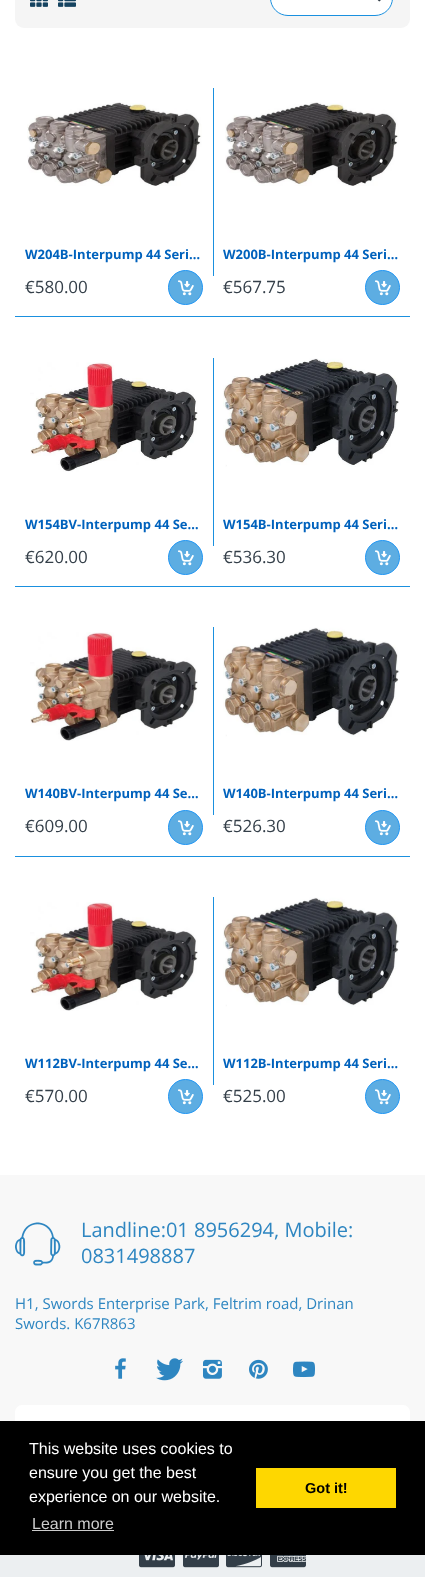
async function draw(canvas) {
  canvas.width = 425;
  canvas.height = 1577;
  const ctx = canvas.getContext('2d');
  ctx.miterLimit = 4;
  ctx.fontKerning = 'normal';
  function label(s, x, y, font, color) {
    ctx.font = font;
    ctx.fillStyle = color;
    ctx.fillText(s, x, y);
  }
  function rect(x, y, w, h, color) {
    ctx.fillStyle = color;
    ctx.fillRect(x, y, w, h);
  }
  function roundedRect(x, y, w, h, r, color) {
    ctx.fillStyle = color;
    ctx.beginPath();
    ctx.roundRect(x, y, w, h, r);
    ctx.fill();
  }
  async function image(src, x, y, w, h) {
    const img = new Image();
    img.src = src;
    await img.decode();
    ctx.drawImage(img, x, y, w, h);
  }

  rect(0, 0, 425, 1577, '#fff');
  roundedRect(15, -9, 395, 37, 9, '#f5f5f5');
  await image('assets/img1.png', 30, 0, 18, 7);
  await image('assets/img2.png', 58, 0, 18, 7);
  ctx.fillStyle = '#fff';
  ctx.beginPath();
  ctx.roundRect(270.5, -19.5, 122, 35, 18.5);
  ctx.fill();
  ctx.strokeStyle = '#1a90df';
  ctx.stroke();
  await image('assets/img3.png', 377, 0, 4, 2);
  await image('assets/img4.png', 27, 102, 175, 84);
  label('W204B-Interpump 44 Seri…', 25, 259, 'bold 13px Open Sans', '#0062bd');
  label('€580.00', 25, 293, '17px Open Sans', '#343f49');
  ctx.fillStyle = '#5dade2';
  ctx.beginPath();
  ctx.arc(185.5, 287.5, 17, 0, 2 * Math.PI);
  ctx.fill();
  ctx.strokeStyle = '#2196f3';
  ctx.stroke();
  await image('assets/img5.png', 178, 280, 16, 16);
  rect(213, 88, 1, 188, '#1a90df');
  await image('assets/img6.png', 225, 102, 174, 84);
  label('W200B-Interpump 44 Seri…', 223, 259, 'bold 13px Open Sans', '#0062bd');
  label('€567.75', 223, 293, '17px Open Sans', '#343f49');
  ctx.fillStyle = '#5dade2';
  ctx.beginPath();
  ctx.arc(382.5, 287.5, 17, 0, 2 * Math.PI);
  ctx.fill();
  ctx.stroke();
  await image('assets/img5.png', 375, 280, 16, 16);
  rect(15, 316, 395, 1, '#1a90df');
  await image('assets/img7.png', 30, 362, 168, 110);
  label('W154BV-Interpump 44 Se…', 25, 529, 'bold 13px Open Sans', '#0062bd');
  label('€620.00', 25, 563, '17px Open Sans', '#343f49');
  ctx.fillStyle = '#5dade2';
  ctx.beginPath();
  ctx.arc(185.5, 557.5, 17, 0, 2 * Math.PI);
  ctx.fill();
  ctx.stroke();
  await image('assets/img5.png', 178, 550, 16, 16);
  rect(213, 358, 1, 188, '#1a90df');
  await image('assets/img8.png', 223, 358, 177, 109);
  label('W154B-Interpump 44 Seri…', 223, 529, 'bold 13px Open Sans', '#0062bd');
  label('€536.30', 223, 563, '17px Open Sans', '#343f49');
  ctx.fillStyle = '#5dade2';
  ctx.beginPath();
  ctx.arc(382.5, 557.5, 17, 0, 2 * Math.PI);
  ctx.fill();
  ctx.stroke();
  await image('assets/img5.png', 375, 550, 16, 16);
  rect(15, 586, 395, 1, '#1a90df');
  await image('assets/img9.png', 30, 632, 168, 109);
  label('W140BV-Interpump 44 Se…', 25, 798, 'bold 13px Open Sans', '#0062bd');
  label('€609.00', 25, 832, '17px Open Sans', '#343f49');
  ctx.fillStyle = '#5dade2';
  ctx.beginPath();
  ctx.arc(185.5, 827.5, 17, 0, 2 * Math.PI);
  ctx.fill();
  ctx.stroke();
  await image('assets/img5.png', 178, 820, 16, 16);
  rect(213, 627, 1, 188, '#1a90df');
  await image('assets/img10.png', 223, 627, 177, 110);
  label('W140B-Interpump 44 Seri…', 223, 798, 'bold 13px Open Sans', '#0062bd');
  label('€526.30', 223, 832, '17px Open Sans', '#343f49');
  ctx.fillStyle = '#5dade2';
  ctx.beginPath();
  ctx.arc(382.5, 827.5, 17, 0, 2 * Math.PI);
  ctx.fill();
  ctx.stroke();
  await image('assets/img5.png', 375, 820, 16, 16);
  rect(15, 856, 395, 1, '#1a90df');
  await image('assets/img9.png', 30, 902, 168, 109);
  label('W112BV-Interpump 44 Se…', 25, 1068, 'bold 13px Open Sans', '#0062bd');
  label('€570.00', 25, 1102, '17px Open Sans', '#343f49');
  ctx.fillStyle = '#5dade2';
  ctx.beginPath();
  ctx.arc(185.5, 1096.5, 17, 0, 2 * Math.PI);
  ctx.fill();
  ctx.stroke();
  await image('assets/img5.png', 178, 1089, 16, 16);
  rect(213, 897, 1, 188, '#1a90df');
  await image('assets/img10.png', 223, 897, 177, 110);
  label('W112B-Interpump 44 Seri…', 223, 1068, 'bold 13px Open Sans', '#0062bd');
  label('€525.00', 223, 1102, '17px Open Sans', '#343f49');
  ctx.fillStyle = '#5dade2';
  ctx.beginPath();
  ctx.arc(382.5, 1096.5, 17, 0, 2 * Math.PI);
  ctx.fill();
  ctx.stroke();
  await image('assets/img5.png', 375, 1089, 16, 16);
  rect(0, 1175, 425, 246, '#f8f8f8');
  await image('assets/img11.png', 15, 1222, 46, 44);
  label('Landline:01 8956294, Mobile:', 81, 1237, '20px Open Sans', '#2e86c1');
  label('0831498887', 81, 1263, '20px Open Sans', '#2e86c1');
  label('H1, Swords Enterprise Park, Feltrim road, Drinan', 15, 1309, '15px Open Sans', '#2e86c1');
  label('Swords. K67R863', 15, 1329, '15px Open Sans', '#2e86c1');
  await image('assets/img12.png', 115, 1358, 11, 21);
  await image('assets/img13.png', 156, 1358, 27, 23);
  await image('assets/img14.png', 203, 1359, 19, 20);
  await image('assets/img15.png', 249, 1359, 19, 20);
  await image('assets/img16.png', 293, 1361, 22, 17);
  roundedRect(15, 1405, 395, 52, 7, '#fff');
  rect(0, 1555, 425, 22, '#eceff1');
  await image('assets/img17.png', 139, 1555, 36, 13);
  await image('assets/img18.png', 183, 1555, 36, 13);
  await image('assets/img19.png', 226, 1555, 36, 13);
  await image('assets/img20.png', 270, 1555, 36, 13);
  rect(0, 1421, 425, 134, '#000');
  label('This website uses cookies to', 29, 1454, '16px Liberation Sans', '#fff');
  label('ensure you get the best', 29, 1478, '16px Liberation Sans', '#fff');
  label('experience on our website.', 29, 1502, '16px Liberation Sans', '#fff');
  label('Learn more', 32, 1529, '16px Liberation Sans', '#ccc');
  rect(32, 1530, 82, 1, '#ccc');
  rect(256, 1468, 140, 40, '#fed700');
  label('Got it!', 305, 1493, 'bold 14.5px Liberation Sans', '#000');
}

draw(document.querySelector('canvas'));
